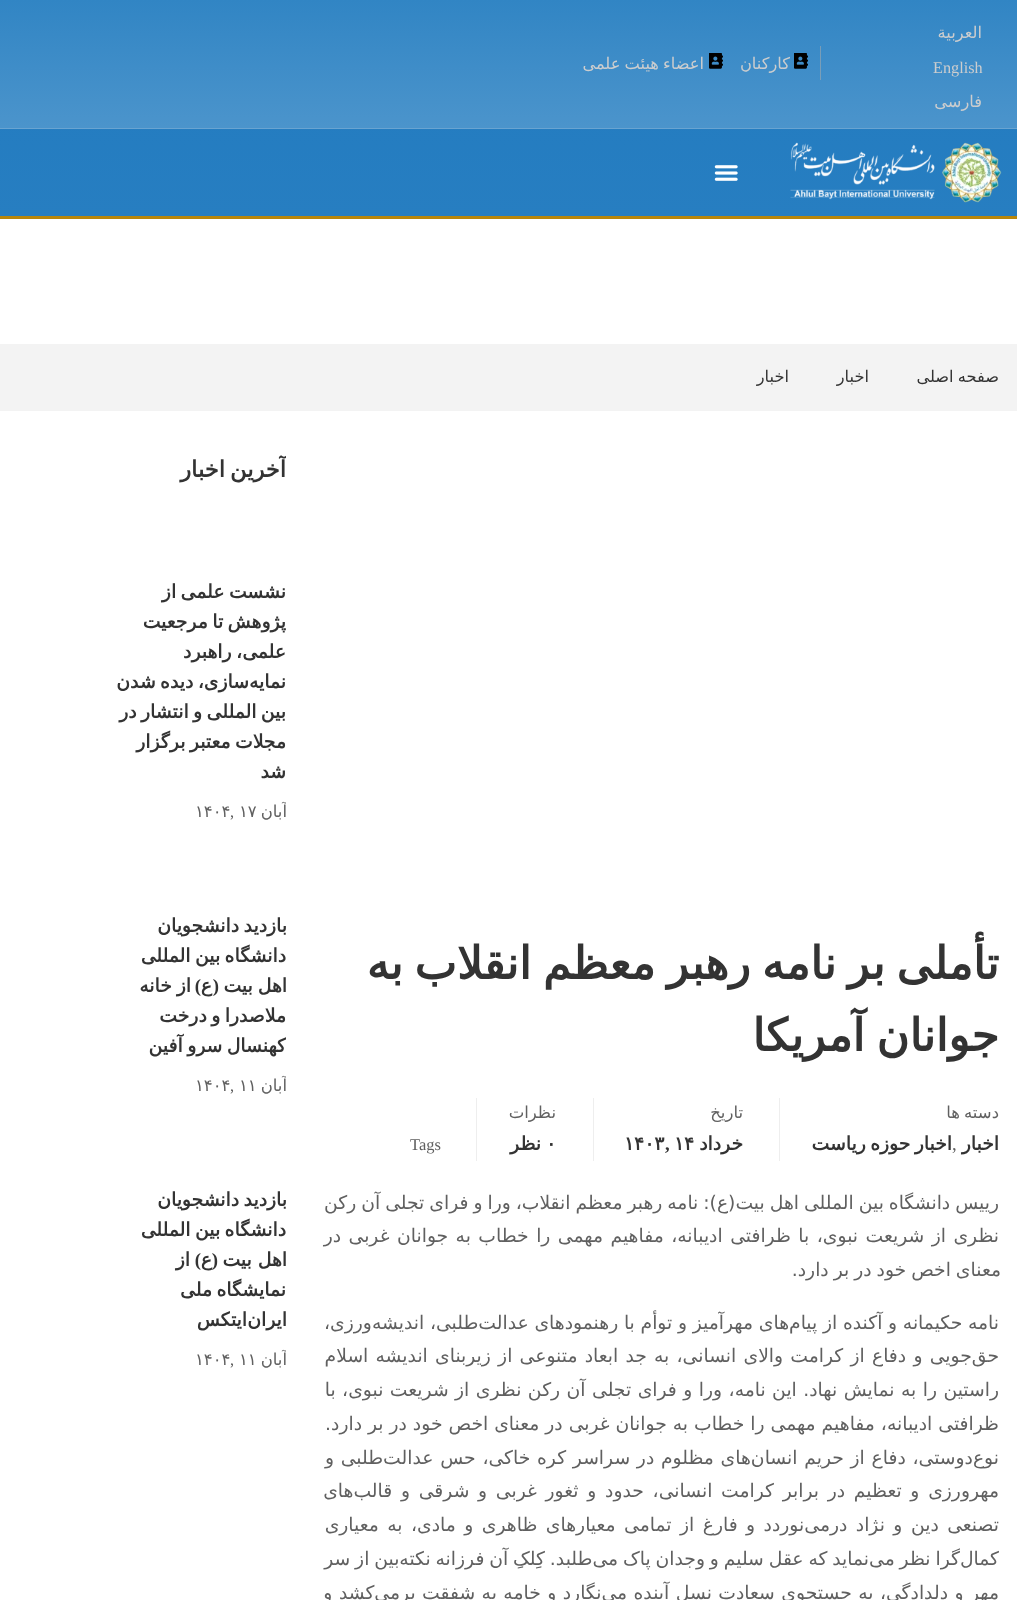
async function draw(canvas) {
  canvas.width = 1017;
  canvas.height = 1600;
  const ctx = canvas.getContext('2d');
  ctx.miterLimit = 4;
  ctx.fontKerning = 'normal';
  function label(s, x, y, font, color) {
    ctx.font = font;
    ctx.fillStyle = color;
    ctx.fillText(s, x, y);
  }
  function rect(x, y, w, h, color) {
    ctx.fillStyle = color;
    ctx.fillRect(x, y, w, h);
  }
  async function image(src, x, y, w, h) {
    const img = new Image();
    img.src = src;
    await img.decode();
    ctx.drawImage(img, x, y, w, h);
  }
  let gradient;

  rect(0, 0, 1017, 1600, '#fff');
  gradient = ctx.createLinearGradient(509, 0, 509, 219);
  gradient.addColorStop(0, '#3185c4');
  gradient.addColorStop(1, '#5e9fd1');
  ctx.fillStyle = gradient;
  ctx.fillRect(0, 0, 1017, 128);
  gradient = ctx.createLinearGradient(509, 0, 509, 219);
  gradient.addColorStop(0, '#217bc0');
  gradient.addColorStop(1, '#277ec1');
  ctx.fillStyle = gradient;
  ctx.fillRect(0, 129, 1017, 87);
  gradient = ctx.createLinearGradient(509, 0, 509, 219);
  gradient.addColorStop(0, '#749ab6');
  gradient.addColorStop(1, '#88a6bc');
  ctx.fillStyle = gradient;
  ctx.fillRect(820, 46, 1, 34);
  rect(0, 128, 1017, 1, '#69a4d1');
  ctx.direction = 'rtl';
  label('العربية', 982, 38, '16.25px DejaVu Sans', '#cccdce');
  ctx.direction = 'ltr';
  label('English', 933, 73, '16.25px Liberation Serif', '#cccdce');
  ctx.direction = 'rtl';
  label('فارسی', 982, 107, '16.25px DejaVu Sans', '#cccdce');
  await image('assets/img1.png', 794, 53, 14, 16);
  label('کارکنان', 790, 69, '16.25px DejaVu Sans', '#cccdce');
  await image('assets/img1.png', 709, 53, 14, 16);
  ctx.wordSpacing = '-1px';
  label('اعضاء هیئت علمی', 704, 69, '16.25px DejaVu Sans', '#cccdce');
  rect(0, 216, 1017, 3, '#b8860b');
  await image('assets/img2.png', 790, 142, 212, 61);
  await image('assets/img3.png', 714, 165, 24, 16);
  rect(0, 344, 1017, 67, '#f3f3f3');
  label('صفحه اصلی', 999, 382, '16.25px DejaVu Sans', '#333');
  ctx.wordSpacing = '0px';
  label('اخبار', 869, 382, '16.25px DejaVu Sans', '#333');
  label('اخبار', 789, 382, '16.25px DejaVu Sans', '#333');
  ctx.wordSpacing = '-3px';
  label('تأملی بر نامه رهبر معظم انقلاب به', 999, 979, 'bold 45px DejaVu Sans', '#333');
  label('جوانان آمریکا', 999, 1051, 'bold 45px DejaVu Sans', '#333');
  rect(779, 1098, 1, 63, '#eee');
  ctx.wordSpacing = '-1.1px';
  label('دسته ها', 999, 1118, '16.5px DejaVu Sans', '#606060');
  ctx.wordSpacing = '0px';
  label('اخبار', 999, 1150, 'bold 18.75px DejaVu Sans', '#333');
  ctx.direction = 'ltr';
  label(',', 952, 1150, '18.75px Liberation Serif', '#606060');
  ctx.wordSpacing = '-1.5px';
  ctx.direction = 'rtl';
  label('اخبار حوزه ریاست', 952, 1150, 'bold 18.75px DejaVu Sans', '#333');
  rect(593, 1098, 1, 63, '#eee');
  ctx.wordSpacing = '0px';
  label('تاریخ', 743, 1118, '16.5px DejaVu Sans', '#606060');
  label('خرداد', 743, 1150, 'bold 18.75px DejaVu Sans', '#333');
  ctx.direction = 'ltr';
  label('۱۴', 674, 1150, 'bold 18.75px DejaVu Sans', '#333');
  label(',', 665, 1150, 'bold 18.75px Liberation Serif', '#333');
  label('۱۴۰۳', 624, 1150, 'bold 18.75px DejaVu Sans', '#333');
  rect(476, 1098, 1, 63, '#eee');
  ctx.direction = 'rtl';
  label('نظرات', 556, 1118, '16.5px DejaVu Sans', '#606060');
  ctx.direction = 'ltr';
  label('۰', 546, 1150, 'bold 18.75px DejaVu Sans', '#333');
  ctx.direction = 'rtl';
  label('نظر', 541, 1150, 'bold 18.75px DejaVu Sans', '#333');
  ctx.direction = 'ltr';
  label('Tags', 410, 1150, '16.5px Liberation Serif', '#606060');
  ctx.wordSpacing = '-1px';
  ctx.direction = 'rtl';
  label('رییس دانشگاه بین المللی اهل بیت(ع): نامه رهبر معظم انقلاب، ورا و فرای تجلی آن رکن', 999, 1209, '18.75px DejaVu Sans', '#606060');
  ctx.wordSpacing = '1.5px';
  label('نظری از شریعت نبوی، با ظرافتی ادیبانه، مفاهیم مهمی را خطاب به جوانان غربی در', 999, 1242, '18.75px DejaVu Sans', '#606060');
  ctx.wordSpacing = '-1px';
  label('معنای اخص خود در بر دارد.', 1001, 1276, '18.75px DejaVu Sans', '#606060');
  ctx.wordSpacing = '-0.25px';
  label('نامه حکیمانه و آکنده از پیام‌های مهرآمیز و توأم با رهنمود‌های عدالت‌طلبی، اندیشه‌ورزی،', 999, 1329, '18.75px DejaVu Sans', '#606060');
  ctx.wordSpacing = '1.25px';
  label('حق‌جویی و دفاع از کرامت والای انسانی، به جد ابعاد متنوعی از زیربنای اندیشه اسلام', 999, 1362, '18.75px DejaVu Sans', '#606060');
  ctx.wordSpacing = '0.5px';
  label('راستین را به نمایش نهاد. این نامه، ورا و فرای تجلی آن رکن نظری از شریعت نبوی، با', 999, 1396, '18.75px DejaVu Sans', '#606060');
  ctx.wordSpacing = '0px';
  label('ظرافتی ادیبانه، مفاهیم مهمی را خطاب به جوانان غربی در معنای اخص خود در بر دارد.', 999, 1430, '18.75px DejaVu Sans', '#606060');
  ctx.wordSpacing = '0.75px';
  label('نوع‌دوستی، دفاع از حریم انسان‌های مظلوم در سراسر کره خاکی، حس عدالت‌طلبی و', 999, 1464, '18.75px DejaVu Sans', '#606060');
  ctx.wordSpacing = '2.75px';
  label('مهر‌ورزی و تعظیم در برابر کرامت انسانی، حدود و ثغور غربی و شرقی و قالب‌های', 999, 1497, '18.75px DejaVu Sans', '#606060');
  ctx.wordSpacing = '2.5px';
  label('تصنعی دین و نژاد در‌می‌نوردد و فارغ از تمامی معیارهای ظاهری و مادی، به معیاری', 999, 1531, '18.75px DejaVu Sans', '#606060');
  ctx.wordSpacing = '-1.1px';
  label('کمال‌گرا نظر می‌نماید که عقل سلیم و وجدان پاک می‌طلبد. کِلکِ آن فرزانه نکته‌بین از سر', 999, 1565, '18.75px DejaVu Sans', '#606060');
  ctx.wordSpacing = '0.5px';
  label('مهر و دلدادگی، به جستجوی سعادت نسل آینده می‌نگارد و خامه به شفقت برمی‌کشد و', 999, 1599, '18.75px DejaVu Sans', '#606060');
  ctx.save();
  ctx.beginPath();
  ctx.rect(19, 455, 267, 913);
  ctx.clip();
  ctx.wordSpacing = '-2px';
  label('آخرین اخبار', 286, 477, 'bold 22.5px DejaVu Sans', '#333');
  ctx.restore();
  ctx.wordSpacing = '-1.5px';
  label('نشست علمی از', 286, 598, 'bold 18.75px DejaVu Sans', '#333');
  label('پژوهش تا مرجعیت', 286, 628, 'bold 18.75px DejaVu Sans', '#333');
  label('علمی، راهبرد', 286, 658, 'bold 18.75px DejaVu Sans', '#333');
  ctx.wordSpacing = '0px';
  label('نمایه', 286, 688, 'bold 18.75px DejaVu Sans', '#333');
  ctx.wordSpacing = '-1.5px';
  label('سازی، دیده شدن', 249, 688, 'bold 18.75px DejaVu Sans', '#333');
  label('بین المللی و انتشار در', 286, 718, 'bold 18.75px DejaVu Sans', '#333');
  label('مجلات معتبر برگزار', 286, 748, 'bold 18.75px DejaVu Sans', '#333');
  ctx.wordSpacing = '0px';
  label('شد', 286, 778, 'bold 18.75px DejaVu Sans', '#333');
  ctx.save();
  ctx.beginPath();
  ctx.rect(19, 511, 267, 309);
  ctx.clip();
  label('آبان', 287, 817, '16.5px DejaVu Sans', '#606060');
  ctx.restore();
  ctx.direction = 'ltr';
  label('۱۷', 239, 817, '16.5px DejaVu Sans', '#606060');
  label('۱۴۰۴', 195, 817, '16.5px DejaVu Sans', '#606060');
  label(',', 230, 817, '16.5px Liberation Serif', '#606060');
  ctx.wordSpacing = '-1.5px';
  ctx.direction = 'rtl';
  label('بازدید دانشجویان', 287, 932, 'bold 18.75px DejaVu Sans', '#333');
  label('دانشگاه بین المللی', 286, 962, 'bold 18.75px DejaVu Sans', '#333');
  ctx.wordSpacing = '-1px';
  label('اهل بیت', 287, 992, 'bold 18.75px DejaVu Sans', '#333');
  ctx.wordSpacing = '0px';
  label('(', 219, 992, 'bold 18.75px Liberation Serif', '#333');
  label('ع', 212, 992, 'bold 18.75px DejaVu Sans', '#333');
  label(')', 201, 992, 'bold 18.75px Liberation Serif', '#333');
  ctx.wordSpacing = '-1px';
  label('از خانه', 191, 992, 'bold 18.75px DejaVu Sans', '#333');
  ctx.wordSpacing = '-1.5px';
  label('ملاصدرا و درخت', 286, 1022, 'bold 18.75px DejaVu Sans', '#333');
  ctx.save();
  ctx.beginPath();
  ctx.rect(19, 845, 267, 249);
  ctx.clip();
  label('کهنسال سرو آفین', 286, 1052, 'bold 18.75px DejaVu Sans', '#333');
  ctx.wordSpacing = '0px';
  label('آبان', 287, 1091, '16.5px DejaVu Sans', '#606060');
  ctx.restore();
  ctx.wordSpacing = '0px';
  ctx.direction = 'ltr';
  label('۱۱', 239, 1091, '16.5px DejaVu Sans', '#606060');
  label('۱۴۰۴', 195, 1091, '16.5px DejaVu Sans', '#606060');
  label(',', 230, 1091, '16.5px Liberation Serif', '#606060');
  ctx.wordSpacing = '-1.5px';
  ctx.direction = 'rtl';
  label('بازدید دانشجویان', 287, 1206, 'bold 18.75px DejaVu Sans', '#333');
  label('دانشگاه بین المللی', 286, 1236, 'bold 18.75px DejaVu Sans', '#333');
  ctx.wordSpacing = '0px';
  label('اهل بیت', 287, 1266, 'bold 18.75px DejaVu Sans', '#333');
  label('(', 218, 1266, 'bold 18.75px Liberation Serif', '#333');
  label('ع', 212, 1266, 'bold 18.75px DejaVu Sans', '#333');
  label(')', 201, 1266, 'bold 18.75px Liberation Serif', '#333');
  label('از', 190, 1266, 'bold 18.75px DejaVu Sans', '#333');
  ctx.wordSpacing = '-1.5px';
  label('نمایشگاه ملی', 286, 1296, 'bold 18.75px DejaVu Sans', '#333');
  ctx.wordSpacing = '0px';
  label('ایران', 287, 1326, 'bold 18.75px DejaVu Sans', '#333');
  label('ایتکس', 247, 1326, 'bold 18.75px DejaVu Sans', '#333');
  ctx.save();
  ctx.beginPath();
  ctx.rect(19, 1119, 267, 249);
  ctx.clip();
  label('آبان', 287, 1365, '16.5px DejaVu Sans', '#606060');
  ctx.restore();
  ctx.direction = 'ltr';
  label('۱۱', 239, 1365, '16.5px DejaVu Sans', '#606060');
  label('۱۴۰۴', 195, 1365, '16.5px DejaVu Sans', '#606060');
  label(',', 230, 1365, '16.5px Liberation Serif', '#606060');
}

draw(document.querySelector('canvas'));
